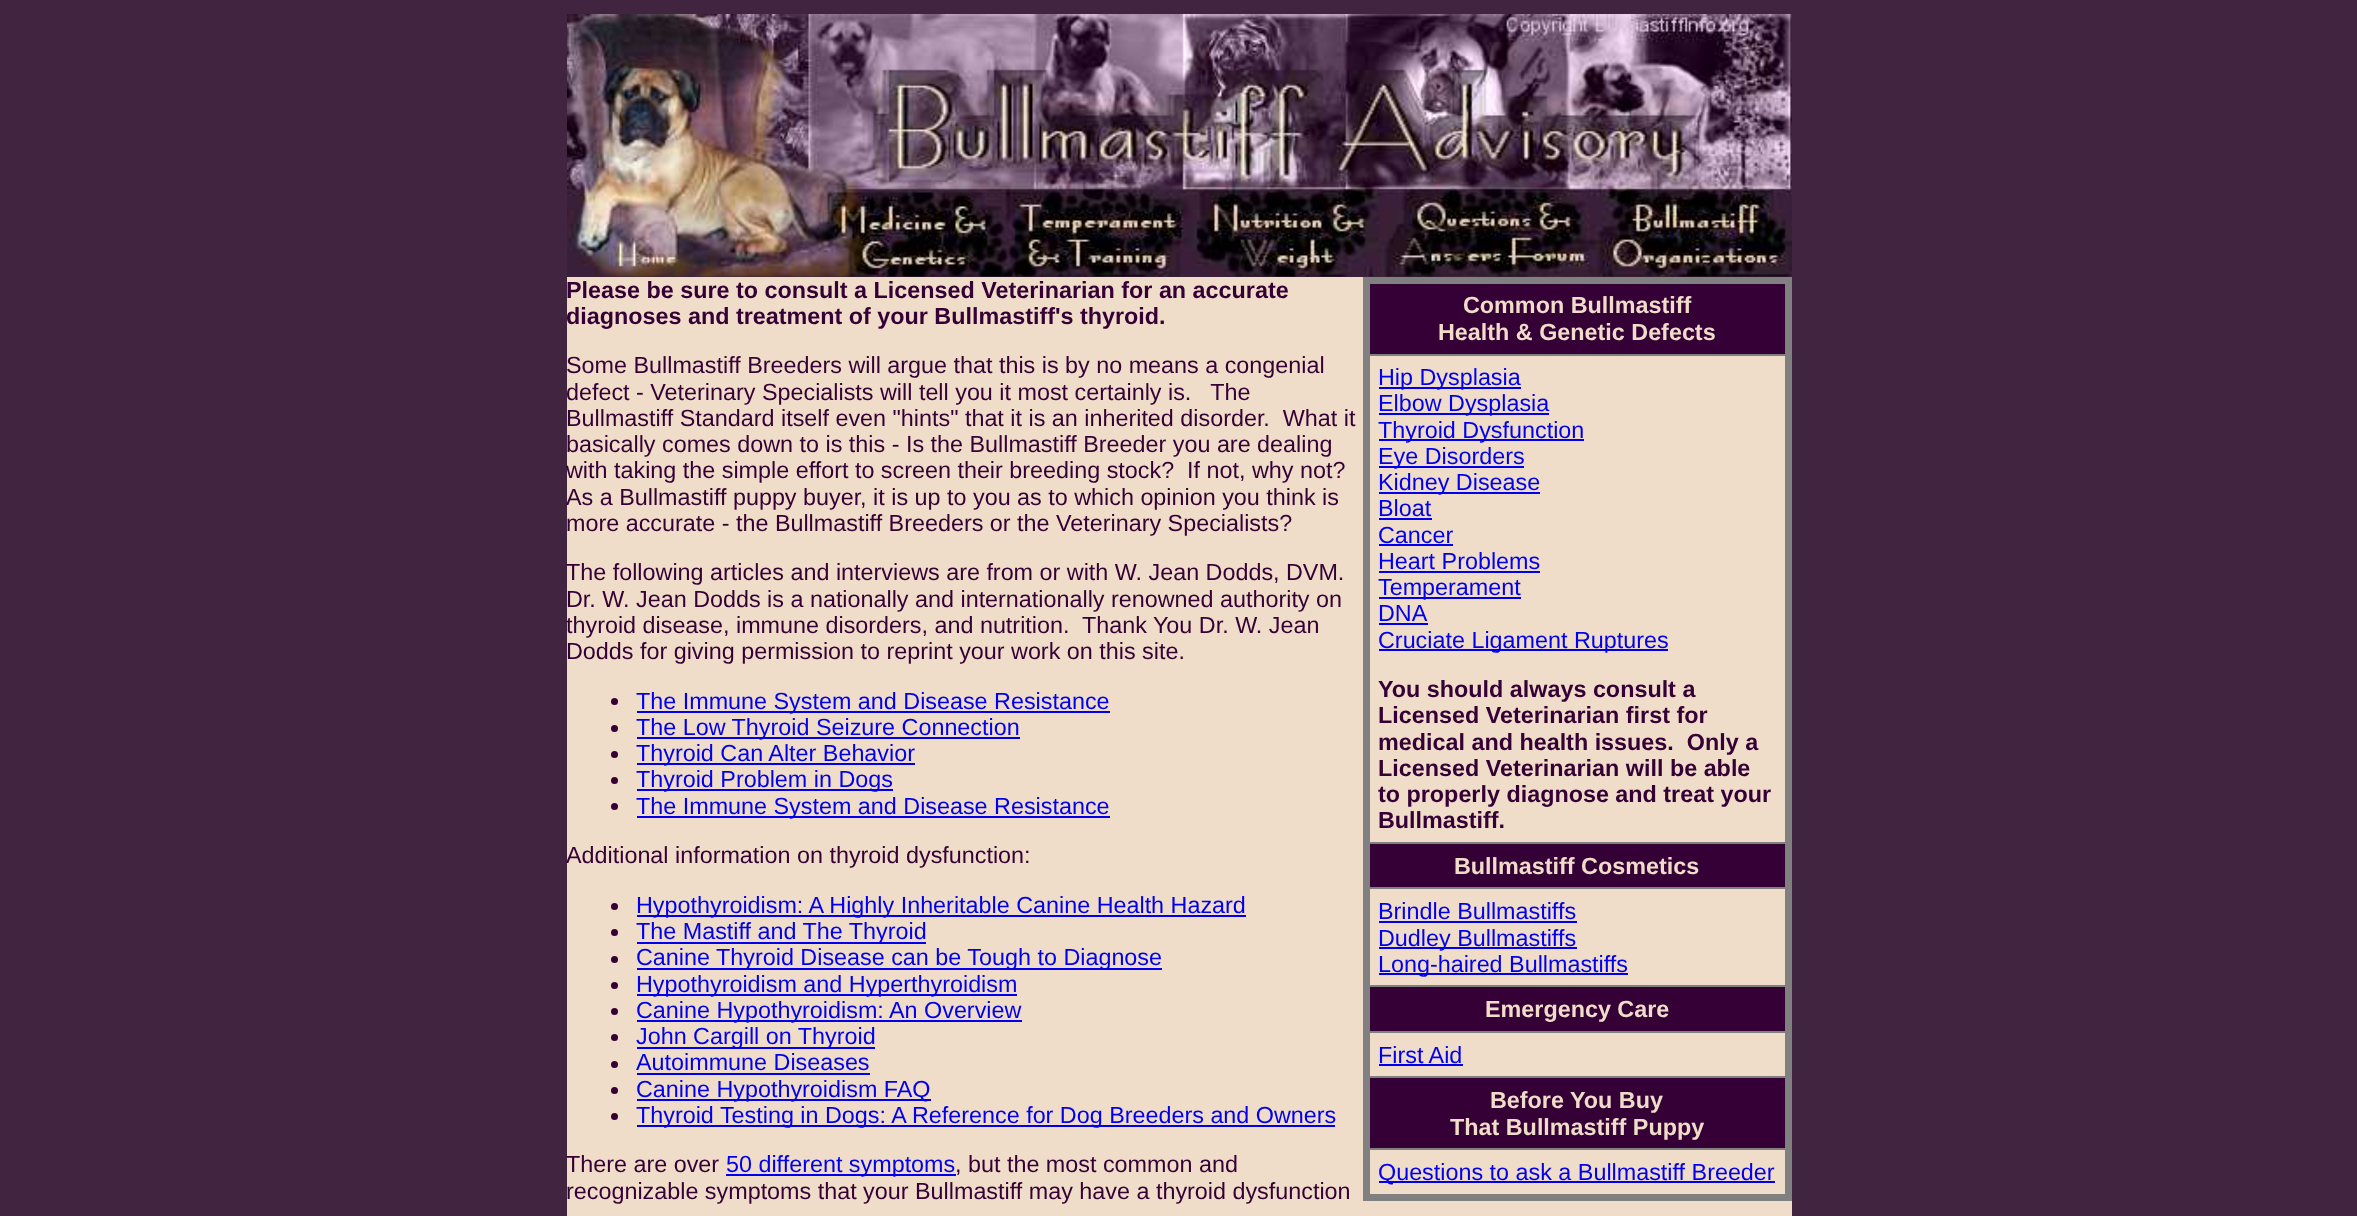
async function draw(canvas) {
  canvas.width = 2357;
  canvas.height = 1216;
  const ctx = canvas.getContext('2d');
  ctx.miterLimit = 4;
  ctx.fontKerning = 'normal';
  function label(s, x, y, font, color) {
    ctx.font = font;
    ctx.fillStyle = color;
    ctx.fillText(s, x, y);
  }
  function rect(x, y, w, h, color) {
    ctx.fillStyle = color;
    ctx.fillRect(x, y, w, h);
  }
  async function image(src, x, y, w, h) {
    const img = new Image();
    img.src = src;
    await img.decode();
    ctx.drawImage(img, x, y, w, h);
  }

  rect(0, 0, 2357, 1216, '#402440');
  await image('assets/img1.png', 567, 14, 1225, 263);
  rect(567, 277, 1225, 939, '#efdcc9');
  label('Please be sure to consult a Licensed Veterinarian for an accurate', 566, 298, 'bold 23.35px Liberation Sans', '#350035');
  label('diagnoses and treatment of your Bullmastiff\'s thyroid.', 566, 324, 'bold 23.35px Liberation Sans', '#350035');
  rect(1363, 277, 429, 7, '#808080');
  rect(1365, 354, 424, 2, '#808080');
  rect(1365, 842, 424, 2, '#808080');
  rect(1365, 887, 424, 2, '#808080');
  rect(1365, 985, 424, 2, '#808080');
  rect(1365, 1031, 424, 2, '#808080');
  rect(1365, 1076, 424, 2, '#808080');
  rect(1365, 1148, 424, 2, '#808080');
  rect(1785, 277, 7, 924, '#808080');
  rect(1363, 1194, 429, 7, '#808080');
  rect(1363, 277, 7, 924, '#808080');
  rect(1370, 284, 415, 70, '#350035');
  label('Common Bullmastiff', 1463, 313, 'bold 23.35px Liberation Sans', '#efdcc9');
  label('Health & Genetic Defects', 1438, 340, 'bold 23.35px Liberation Sans', '#efdcc9');
  rect(1379, 387, 142, 2, '#00e');
  label('Hip Dysplasia', 1378, 385, '23.35px Liberation Sans', '#00e');
  rect(1379, 413, 170, 2, '#00e');
  label('Elbow Dysplasia', 1378, 411, '23.35px Liberation Sans', '#00e');
  rect(1379, 439, 205, 2, '#00e');
  label('Thyroid Dysfunction', 1378, 438, '23.35px Liberation Sans', '#00e');
  rect(1379, 466, 145, 2, '#00e');
  label('Eye Disorders', 1378, 464, '23.35px Liberation Sans', '#00e');
  rect(1379, 492, 161, 2, '#00e');
  label('Kidney Disease', 1378, 490, '23.35px Liberation Sans', '#00e');
  label('Bloat', 1378, 516, '23.35px Liberation Sans', '#00e');
  rect(1379, 518, 53, 2, '#00e');
  label('Cancer', 1378, 543, '23.35px Liberation Sans', '#00e');
  rect(1379, 544, 74, 2, '#00e');
  label('Heart Problems', 1378, 569, '23.35px Liberation Sans', '#00e');
  rect(1379, 571, 161, 2, '#00e');
  rect(1379, 597, 142, 2, '#00e');
  label('Temperament', 1378, 595, '23.35px Liberation Sans', '#00e');
  label('DNA', 1378, 621, '23.35px Liberation Sans', '#00e');
  rect(1379, 623, 49, 2, '#00e');
  rect(1379, 649, 289, 2, '#00e');
  label('Cruciate Ligament Ruptures', 1378, 648, '23.35px Liberation Sans', '#00e');
  label('You should always consult a', 1378, 697, 'bold 23.35px Liberation Sans', '#350035');
  label('Licensed Veterinarian first for', 1378, 723, 'bold 23.35px Liberation Sans', '#350035');
  label('medical and health issues.  Only a', 1378, 750, 'bold 23.35px Liberation Sans', '#350035');
  label('Licensed Veterinarian will be able', 1378, 776, 'bold 23.35px Liberation Sans', '#350035');
  label('to properly diagnose and treat your', 1378, 802, 'bold 23.35px Liberation Sans', '#350035');
  label('Bullmastiff.', 1378, 828, 'bold 23.35px Liberation Sans', '#350035');
  rect(1370, 844, 415, 43, '#350035');
  label('Bullmastiff Cosmetics', 1454, 874, 'bold 23.35px Liberation Sans', '#efdcc9');
  label('Brindle Bullmastiffs', 1378, 919, '23.35px Liberation Sans', '#00e');
  rect(1379, 921, 198, 2, '#00e');
  rect(1379, 947, 198, 2, '#00e');
  label('Dudley Bullmastiffs', 1378, 946, '23.35px Liberation Sans', '#00e');
  rect(1379, 973, 249, 2, '#00e');
  label('Long-haired Bullmastiffs', 1378, 972, '23.35px Liberation Sans', '#00e');
  rect(1370, 987, 415, 44, '#350035');
  label('Emergency Care', 1485, 1017, 'bold 23.35px Liberation Sans', '#efdcc9');
  label('First Aid', 1378, 1063, '23.35px Liberation Sans', '#00e');
  rect(1379, 1064, 84, 2, '#00e');
  rect(1370, 1078, 415, 70, '#350035');
  label('Before You Buy', 1490, 1108, 'bold 23.35px Liberation Sans', '#efdcc9');
  label('That Bullmastiff Puppy', 1450, 1135, 'bold 23.35px Liberation Sans', '#efdcc9');
  rect(1379, 1181, 396, 2, '#00e');
  label('Questions to ask a Bullmastiff Breeder', 1378, 1180, '23.35px Liberation Sans', '#00e');
  label('Some Bullmastiff Breeders will argue that this is by no means a congenial', 566, 373, '23.35px Liberation Sans', '#350035');
  label('defect - Veterinary Specialists will tell you it most certainly is.   The', 566, 400, '23.35px Liberation Sans', '#350035');
  label('Bullmastiff Standard itself even "hints" that it is an inherited disorder.  What it', 566, 426, '23.35px Liberation Sans', '#350035');
  label('basically comes down to is this - Is the Bullmastiff Breeder you are dealing', 566, 452, '23.35px Liberation Sans', '#350035');
  label('with taking the simple effort to screen their breeding stock?  If not, why not?', 566, 478, '23.35px Liberation Sans', '#350035');
  label('As a Bullmastiff puppy buyer, it is up to you as to which opinion you think is', 566, 505, '23.35px Liberation Sans', '#350035');
  label('more accurate - the Bullmastiff Breeders or the Veterinary Specialists?', 566, 531, '23.35px Liberation Sans', '#350035');
  label('The following articles and interviews are from or with W. Jean Dodds,', 566, 580, '23.35px Liberation Sans', '#350035');
  label('DVM.', 1286, 580, '23.35px Liberation Sans', '#350035');
  label('Dr. W. Jean Dodds is a nationally and internationally renowned authority on', 566, 607, '23.35px Liberation Sans', '#350035');
  label('thyroid disease, immune disorders, and nutrition.  Thank You Dr. W. Jean', 566, 633, '23.35px Liberation Sans', '#350035');
  label('Dodds for giving permission to reprint your work on this site.', 566, 659, '23.35px Liberation Sans', '#350035');
  ctx.beginPath();
  ctx.arc(614.5, 701.5, 3.5, 0, 2 * Math.PI);
  ctx.fill();
  rect(637, 711, 473, 2, '#00e');
  label('The Immune System and Disease Resistance', 636, 709, '23.35px Liberation Sans', '#00e');
  ctx.fillStyle = '#350035';
  ctx.beginPath();
  ctx.arc(614.5, 728.5, 3.5, 0, 2 * Math.PI);
  ctx.fill();
  rect(637, 737, 383, 2, '#00e');
  label('The Low Thyroid Seizure Connection', 636, 735, '23.35px Liberation Sans', '#00e');
  ctx.fillStyle = '#350035';
  ctx.beginPath();
  ctx.arc(614.5, 754.5, 3.5, 0, 2 * Math.PI);
  ctx.fill();
  rect(637, 763, 278, 2, '#00e');
  label('Thyroid Can Alter Behavior', 636, 761, '23.35px Liberation Sans', '#00e');
  ctx.fillStyle = '#350035';
  ctx.beginPath();
  ctx.arc(614.5, 780.5, 3.5, 0, 2 * Math.PI);
  ctx.fill();
  rect(637, 789, 256, 2, '#00e');
  label('Thyroid Problem in Dogs', 636, 787, '23.35px Liberation Sans', '#00e');
  ctx.fillStyle = '#350035';
  ctx.beginPath();
  ctx.arc(614.5, 806.5, 3.5, 0, 2 * Math.PI);
  ctx.fill();
  rect(637, 816, 473, 2, '#00e');
  label('The Immune System and Disease Resistance', 636, 814, '23.35px Liberation Sans', '#00e');
  label('Additional information on thyroid dysfunction:', 566, 863, '23.35px Liberation Sans', '#350035');
  ctx.beginPath();
  ctx.arc(614.5, 906.5, 3.5, 0, 2 * Math.PI);
  ctx.fill();
  rect(637, 915, 609, 2, '#00e');
  label('Hypothyroidism: A Highly Inheritable Canine Health Hazard', 636, 913, '23.35px Liberation Sans', '#00e');
  ctx.fillStyle = '#350035';
  ctx.beginPath();
  ctx.arc(614.5, 932.5, 3.5, 0, 2 * Math.PI);
  ctx.fill();
  rect(637, 942, 289, 2, '#00e');
  label('The Mastiff and The Thyroid', 636, 939, '23.35px Liberation Sans', '#00e');
  ctx.fillStyle = '#350035';
  ctx.beginPath();
  ctx.arc(614.5, 959.5, 3.5, 0, 2 * Math.PI);
  ctx.fill();
  rect(637, 968, 525, 2, '#00e');
  label('Canine Thyroid Disease can be Tough to Diagnose', 636, 965, '23.35px Liberation Sans', '#00e');
  ctx.fillStyle = '#350035';
  ctx.beginPath();
  ctx.arc(614.5, 985.5, 3.5, 0, 2 * Math.PI);
  ctx.fill();
  rect(637, 994, 380, 2, '#00e');
  label('Hypothyroidism and Hyperthyroidism', 636, 992, '23.35px Liberation Sans', '#00e');
  ctx.fillStyle = '#350035';
  ctx.beginPath();
  ctx.arc(614.5, 1011.5, 3.5, 0, 2 * Math.PI);
  ctx.fill();
  rect(637, 1020, 385, 2, '#00e');
  label('Canine Hypothyroidism: An Overview', 636, 1018, '23.35px Liberation Sans', '#00e');
  ctx.fillStyle = '#350035';
  ctx.beginPath();
  ctx.arc(614.5, 1037.5, 3.5, 0, 2 * Math.PI);
  ctx.fill();
  rect(637, 1047, 238, 2, '#00e');
  label('John Cargill on Thyroid', 636, 1044, '23.35px Liberation Sans', '#00e');
  ctx.fillStyle = '#350035';
  ctx.beginPath();
  ctx.arc(614.5, 1064.5, 3.5, 0, 2 * Math.PI);
  ctx.fill();
  label('Autoimmune Diseases', 636, 1070, '23.35px Liberation Sans', '#00e');
  rect(637, 1073, 233, 2, '#00e');
  ctx.fillStyle = '#350035';
  ctx.beginPath();
  ctx.arc(614.5, 1090.5, 3.5, 0, 2 * Math.PI);
  ctx.fill();
  rect(637, 1099, 294, 2, '#00e');
  label('Canine Hypothyroidism FAQ', 636, 1097, '23.35px Liberation Sans', '#00e');
  ctx.fillStyle = '#350035';
  ctx.beginPath();
  ctx.arc(614.5, 1116.5, 3.5, 0, 2 * Math.PI);
  ctx.fill();
  rect(637, 1125, 698, 2, '#00e');
  label('Thyroid Testing in Dogs: A Reference for Dog Breeders and Owners', 636, 1123, '23.35px Liberation Sans', '#00e');
  label('There are over', 566, 1172, '23.35px Liberation Sans', '#350035');
  rect(726, 1174, 230, 2, '#00e');
  label('50 different symptoms', 726, 1172, '23.35px Liberation Sans', '#00e');
  label(', but the most common and', 955, 1172, '23.35px Liberation Sans', '#350035');
  label('recognizable symptoms that your Bullmastiff may have a thyroid dysfunction', 566, 1199, '23.35px Liberation Sans', '#350035');
}

draw(document.querySelector('canvas'));
